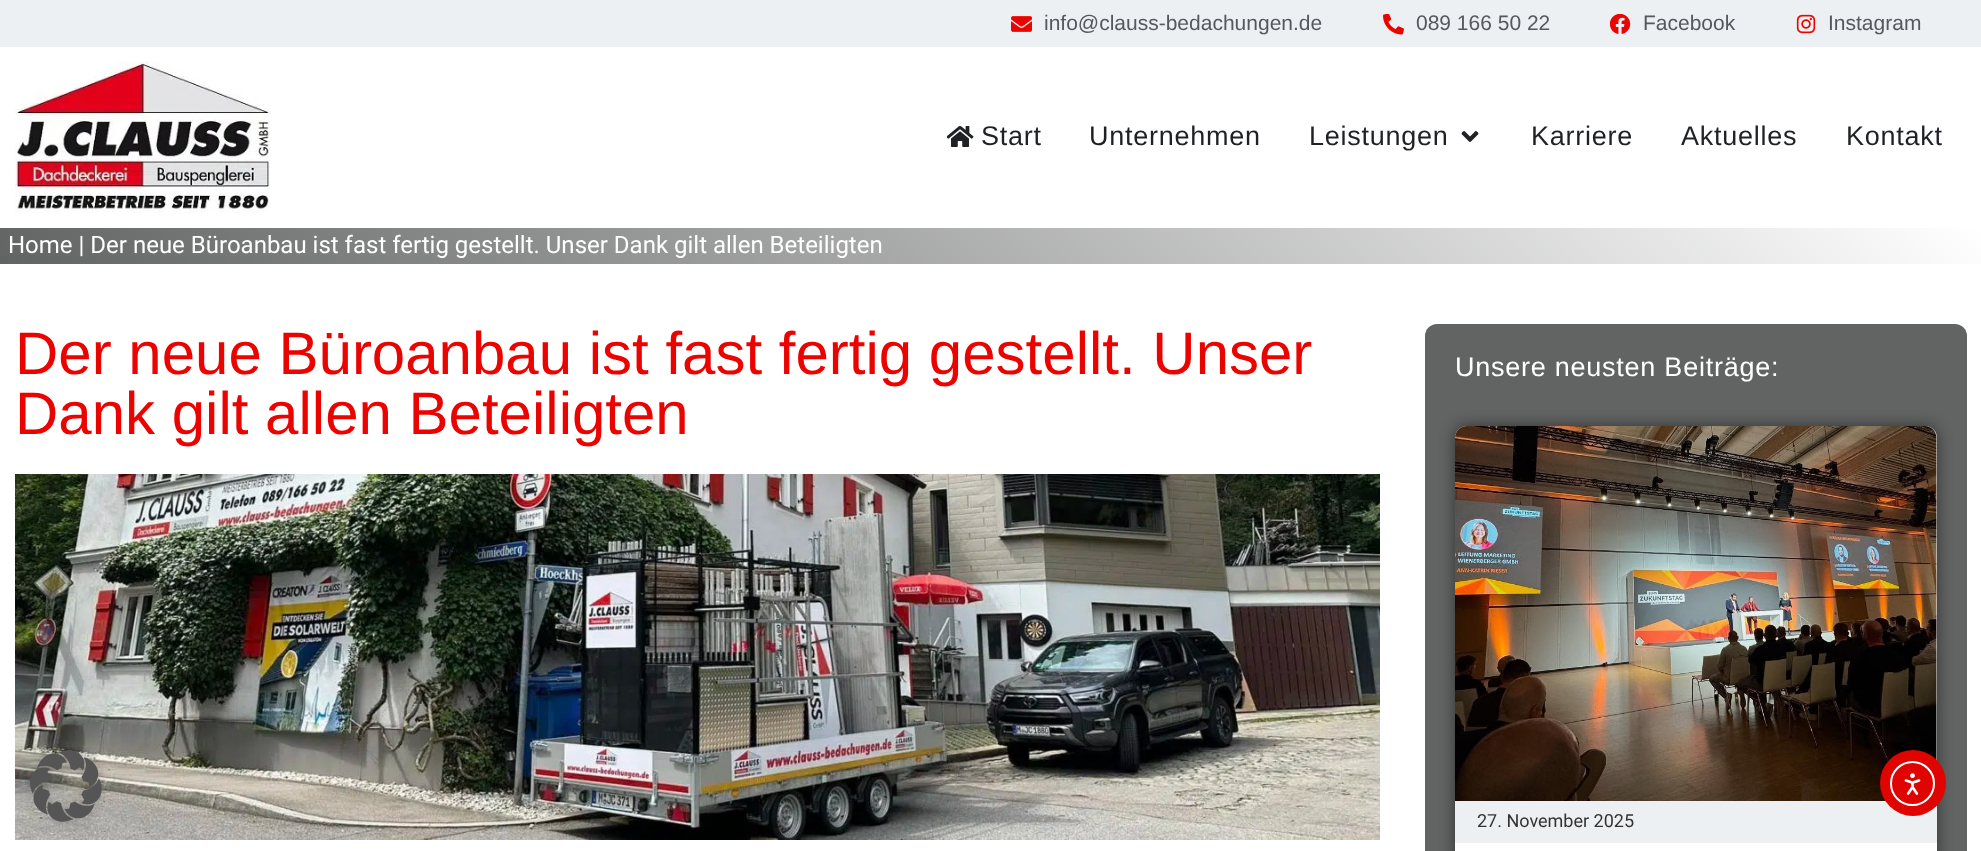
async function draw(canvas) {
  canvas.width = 1981;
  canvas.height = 851;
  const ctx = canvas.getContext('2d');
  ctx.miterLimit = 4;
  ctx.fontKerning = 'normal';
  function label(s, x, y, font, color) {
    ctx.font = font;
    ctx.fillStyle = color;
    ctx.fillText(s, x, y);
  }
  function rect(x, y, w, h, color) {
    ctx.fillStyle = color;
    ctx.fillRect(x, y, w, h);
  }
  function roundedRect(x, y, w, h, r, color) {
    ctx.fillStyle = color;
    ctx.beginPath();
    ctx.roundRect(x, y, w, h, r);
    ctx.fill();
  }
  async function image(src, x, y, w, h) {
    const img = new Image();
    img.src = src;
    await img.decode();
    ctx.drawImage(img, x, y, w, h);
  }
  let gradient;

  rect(0, 0, 1981, 851, '#fff');
  rect(0, 0, 1981, 47, '#edf0f2');
  await image('assets/img1.png', 1011, 16, 21, 16);
  label('info@clauss-bedachungen.de', 1044, 30, '21px Liberation Sans', '#54595f');
  await image('assets/img2.png', 1383, 14, 21, 21);
  label('089 166 50 22', 1416, 30, '21px Liberation Sans', '#54595f');
  await image('assets/img3.png', 1610, 14, 21, 20);
  label('Facebook', 1643, 30, '21px Liberation Sans', '#54595f');
  await image('assets/img4.png', 1796, 14, 20, 20);
  label('Instagram', 1828, 30, '21px Liberation Sans', '#54595f');
  await image('assets/img5.png', 15, 61, 255, 152);
  await image('assets/img6.png', 947, 126, 27, 21);
  ctx.letterSpacing = '0.75px';
  label('Start', 981, 145, '27px Liberation Sans', '#1f2124');
  label('Unternehmen', 1089, 145, '27px Liberation Sans', '#1f2124');
  label('Leistungen', 1309, 145, '27px Liberation Sans', '#1f2124');
  await image('assets/img7.png', 1461, 131, 18, 11);
  label('Karriere', 1531, 145, '27px Liberation Sans', '#1f2124');
  label('Aktuelles', 1681, 145, '27px Liberation Sans', '#1f2124');
  label('Kontakt', 1846, 145, '27px Liberation Sans', '#1f2124');
  gradient = ctx.createLinearGradient(486, 750, 1495, -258);
  gradient.addColorStop(0, '#626363');
  gradient.addColorStop(1, '#fff');
  ctx.fillStyle = gradient;
  ctx.fillRect(0, 228, 1981, 36);
  ctx.letterSpacing = '0px';
  label('Home | Der neue Büroanbau ist fast fertig gestellt. Unser Dank gilt allen Beteiligten', 8, 253, '24px Roboto', '#fff');
  label('Der neue Büroanbau ist fast fertig gestellt. Unser', 15, 374, '60px Liberation Sans', '#eb0300');
  label('Dank gilt allen Beteiligten', 15, 434, '60px Liberation Sans', '#eb0300');
  await image('assets/img8.png', 15, 474, 1365, 366);
  roundedRect(1425, 324, 542, 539, 12, '#626363');
  ctx.letterSpacing = '0.75px';
  label('Unsere neusten Beiträge:', 1455, 376, '27px Liberation Sans', '#fff');
  ctx.fillStyle = '#00000080';
  ctx.filter = 'blur(7.5px)';
  ctx.beginPath();
  ctx.roundRect(1455, 426, 482, 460, 12);
  ctx.fill();
  ctx.filter = 'none';
  roundedRect(1455, 426, 482, 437, 12, '#fff');
  await image('assets/img9.png', 1455, 426, 482, 375);
  rect(1455, 801, 482, 42, '#edf0f2');
  ctx.letterSpacing = '0px';
  label('27. November 2025', 1477, 827, '18px Roboto', '#333');
  await image('assets/img10.png', 25, 747, 83, 81);
  ctx.fillStyle = '#df0400';
  ctx.beginPath();
  ctx.arc(1913, 783, 33, 0, 2 * Math.PI);
  ctx.fill();
  ctx.beginPath();
  ctx.arc(1912.5, 783.5, 21.5, 0, 2 * Math.PI);
  ctx.strokeStyle = '#fff';
  ctx.lineWidth = 2;
  ctx.stroke();
  await image('assets/img11.png', 1904, 773, 17, 22);
}

draw(document.querySelector('canvas'));
